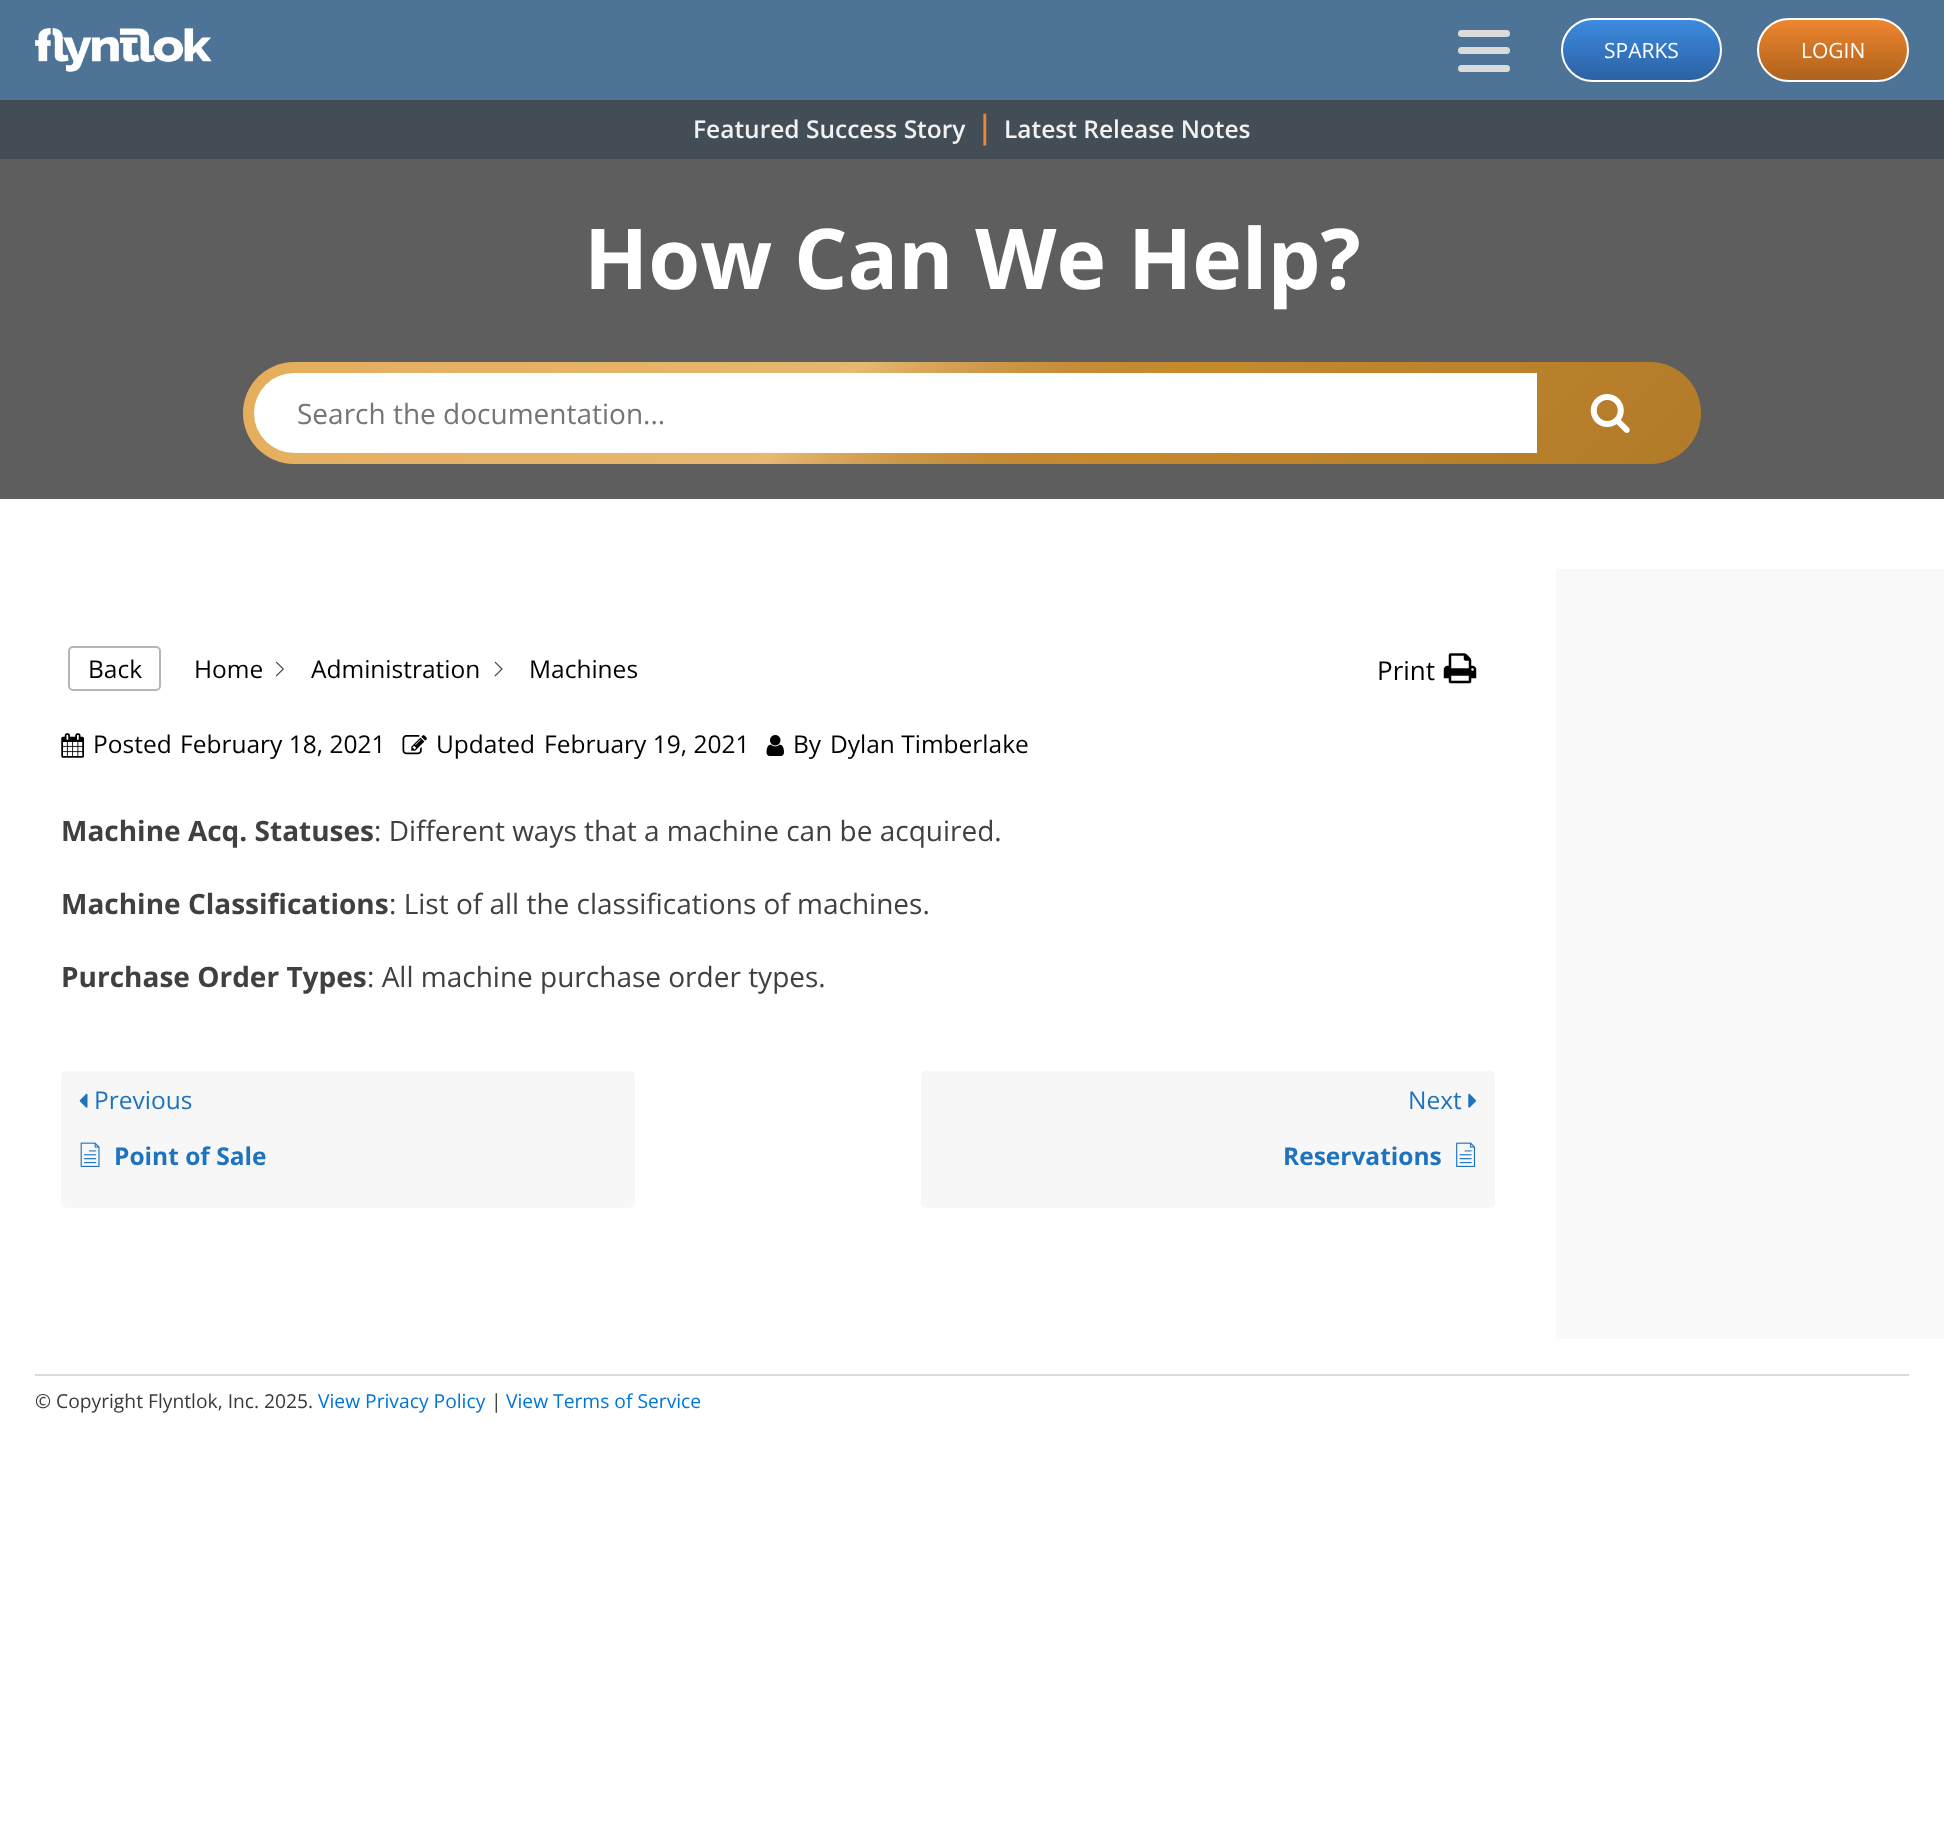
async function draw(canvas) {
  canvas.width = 1944;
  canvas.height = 1846;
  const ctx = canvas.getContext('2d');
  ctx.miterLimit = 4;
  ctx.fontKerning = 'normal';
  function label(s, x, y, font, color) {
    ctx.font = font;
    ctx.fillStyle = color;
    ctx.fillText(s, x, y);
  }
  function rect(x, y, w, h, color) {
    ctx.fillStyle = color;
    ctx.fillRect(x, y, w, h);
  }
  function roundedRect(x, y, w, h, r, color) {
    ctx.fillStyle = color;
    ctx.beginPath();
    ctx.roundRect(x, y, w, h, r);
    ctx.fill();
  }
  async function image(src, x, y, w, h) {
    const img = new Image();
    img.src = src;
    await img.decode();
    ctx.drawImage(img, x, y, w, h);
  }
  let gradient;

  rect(0, 0, 1944, 1846, '#fff');
  rect(0, 0, 1944, 100, '#4d7496');
  await image('assets/img1.png', 35, 28, 177, 44);
  roundedRect(1458, 30, 52, 7, 3.5, '#dbdbdb');
  roundedRect(1458, 47, 52, 7, 3.5, '#dbdbdb');
  roundedRect(1458, 65, 52, 7, 3.5, '#dbdbdb');
  ctx.save();
  ctx.beginPath();
  ctx.roundRect(1561, 18, 161, 64, 32);
  ctx.clip();
  gradient = ctx.createLinearGradient(1642, 19, 1642, 81);
  gradient.addColorStop(0, '#3d8be0');
  gradient.addColorStop(1, '#2c61a3');
  ctx.fillStyle = gradient;
  ctx.fillRect(1561, 19, 161, 62);
  ctx.restore();
  ctx.beginPath();
  ctx.roundRect(1562, 19, 159, 62, 31);
  ctx.strokeStyle = '#fff';
  ctx.lineWidth = 2;
  ctx.stroke();
  label('SPARKS', 1604, 58, '21px Open Sans', '#fff');
  ctx.save();
  ctx.beginPath();
  ctx.roundRect(1757, 18, 152, 64, 32);
  ctx.clip();
  gradient = ctx.createLinearGradient(1833, 19, 1833, 81);
  gradient.addColorStop(0, '#ef8630');
  gradient.addColorStop(1, '#ad621b');
  ctx.fillStyle = gradient;
  ctx.fillRect(1757, 19, 152, 62);
  ctx.restore();
  ctx.beginPath();
  ctx.roundRect(1758, 19, 150, 62, 31);
  ctx.stroke();
  label('LOGIN', 1801, 58, '21px Open Sans', '#fff');
  rect(0, 100, 1944, 59, '#434d56');
  label('Featured Success Story', 693, 138, '600 24.5px Open Sans', '#f1f1f1');
  label('|', 976, 138, '600 32px Open Sans', '#ef8630');
  label('Latest Release Notes', 1004, 138, '600 24.5px Open Sans', '#f1f1f1');
  rect(0, 159, 1944, 340, '#5e5e5e');
  label('How Can We Help?', 584, 289, 'bold 84px Open Sans', '#fff');
  roundedRect(243, 362, 1458, 102, 51, '#d93');
  gradient = ctx.createLinearGradient(582, 23, 1362, 803);
  gradient.addColorStop(0, '#ffffff33');
  gradient.addColorStop(0.4, '#ffffff4d');
  gradient.addColorStop(0.6, '#0000001a');
  gradient.addColorStop(1, '#00000033');
  ctx.fillStyle = gradient;
  ctx.beginPath();
  ctx.roundRect(243, 362, 1458, 102, 51);
  ctx.fill();
  ctx.fillStyle = '#fff';
  ctx.beginPath();
  ctx.roundRect(254, 373, 1283, 80, [40, 0, 0, 40]);
  ctx.fill();
  label('Search the documentation...', 297, 424, '28px Open Sans', '#757575');
  await image('assets/img2.png', 1590, 394, 40, 39);
  ctx.beginPath();
  ctx.roundRect(69, 647, 91, 43, 4);
  ctx.strokeStyle = '#b5b5b5';
  ctx.stroke();
  label('Back', 88, 678, '24.5px Open Sans', '#000');
  label('Home', 194, 678, '24.5px Open Sans', '#000');
  await image('assets/img3.png', 275, 661, 9, 16);
  label('Administration', 311, 678, '24.5px Open Sans', '#000');
  await image('assets/img4.png', 494, 661, 9, 16);
  label('Machines', 529, 678, '24.5px Open Sans', '#000');
  label('Print', 1377, 680, '26px Open Sans', '#000');
  await image('assets/img5.png', 1443, 653, 34, 31);
  await image('assets/img6.png', 61, 733, 23, 25);
  label('Posted', 93, 753, '24.5px Open Sans', '#000');
  label('February 18, 2021', 180, 753, '24.5px Open Sans', '#000');
  await image('assets/img7.png', 402, 735, 25, 20);
  label('Updated', 436, 753, '24.5px Open Sans', '#000');
  label('February 19, 2021', 544, 753, '24.5px Open Sans', '#000');
  await image('assets/img8.png', 766, 735, 18, 21);
  label('By', 793, 753, '24.5px Open Sans', '#000');
  label('Dylan Timberlake', 830, 753, '24.5px Open Sans', '#000');
  label('Machine Acq. Statuses', 61, 841, 'bold 28px Open Sans', '#404040');
  label(': Different ways that a machine can be acquired.', 374, 841, '28px Open Sans', '#404040');
  label('Machine Classifications', 61, 914, 'bold 28px Open Sans', '#404040');
  label(': List of all the classifications of machines.', 389, 914, '28px Open Sans', '#404040');
  label('Purchase Order Types', 61, 987, 'bold 28px Open Sans', '#404040');
  label(': All machine purchase order types.', 367, 987, '28px Open Sans', '#404040');
  roundedRect(61, 1071, 574, 137, 5, '#f7f7f7');
  await image('assets/img9.png', 79, 1093, 9, 15);
  label('Previous', 94, 1109, '24.5px Open Sans', '#1e73be');
  await image('assets/img10.png', 80, 1142, 20, 25);
  label('Point of Sale', 114, 1165, 'bold 24.5px Open Sans', '#1e73be');
  roundedRect(921, 1071, 574, 137, 5, '#f7f7f7');
  label('Next', 1408, 1109, '24.5px Open Sans', '#1e73be');
  await image('assets/img11.png', 1468, 1093, 9, 15);
  label('Reservations', 1283, 1165, 'bold 24.5px Open Sans', '#1e73be');
  await image('assets/img12.png', 1456, 1142, 20, 25);
  rect(1556, 569, 388, 770, '#f9f9f9');
  rect(35, 1374, 1874, 2, '#dbdbdb');
  label('© Copyright Flyntlok, Inc. 2025.', 35, 1408, '19.25px Open Sans', '#3a3a3a');
  label('View Privacy Policy', 318, 1408, '19.25px Open Sans', '#0074db');
  label('|', 491, 1408, '19.25px Open Sans', '#3a3a3a');
  label('View Terms of Service', 506, 1408, '19.25px Open Sans', '#0074db');
}

draw(document.querySelector('canvas'));
